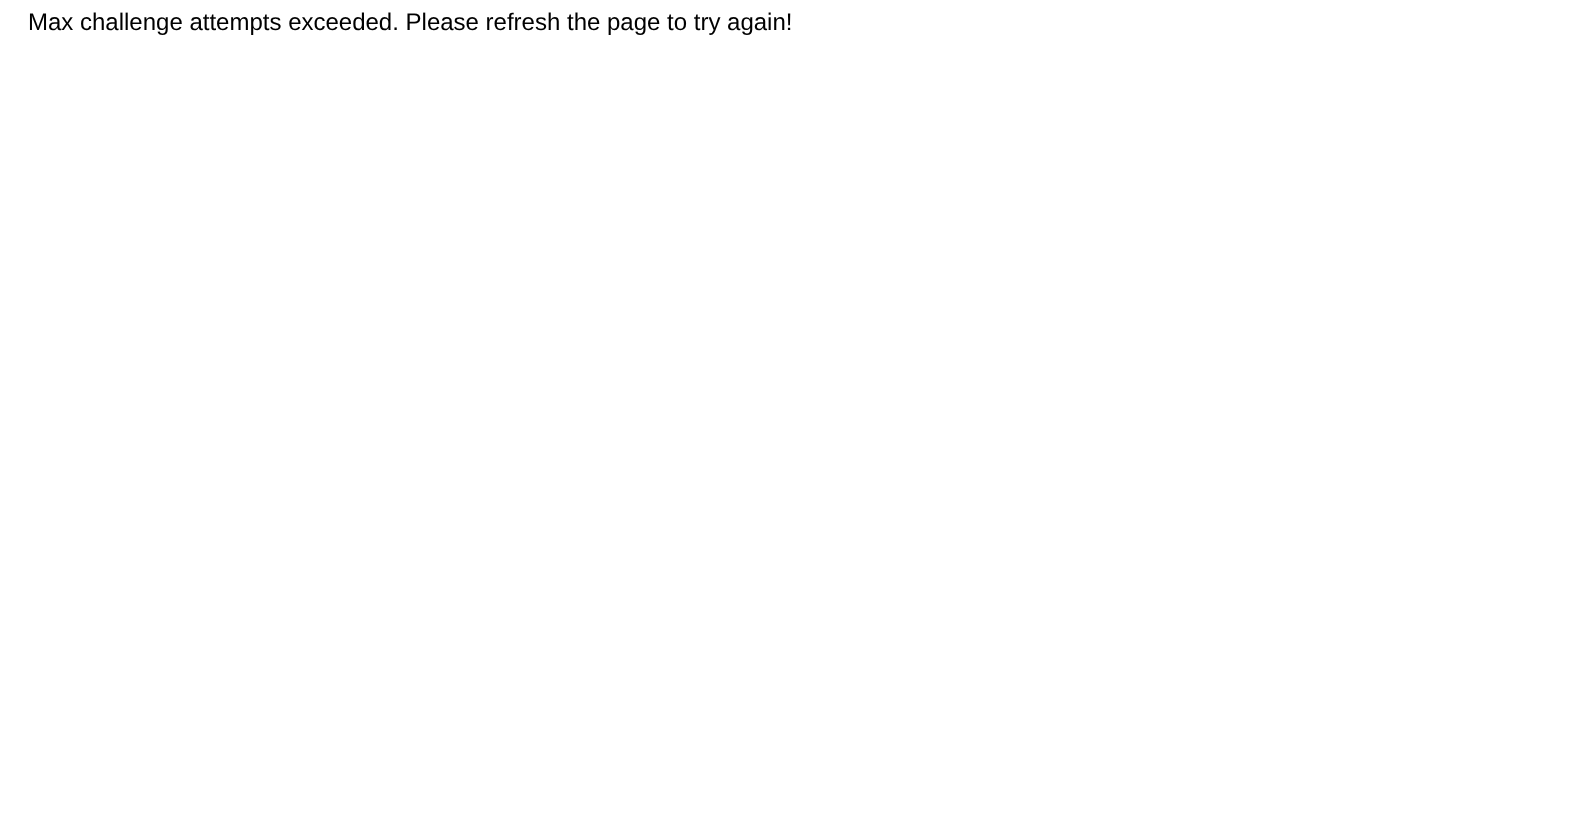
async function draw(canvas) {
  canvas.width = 1570;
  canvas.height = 821;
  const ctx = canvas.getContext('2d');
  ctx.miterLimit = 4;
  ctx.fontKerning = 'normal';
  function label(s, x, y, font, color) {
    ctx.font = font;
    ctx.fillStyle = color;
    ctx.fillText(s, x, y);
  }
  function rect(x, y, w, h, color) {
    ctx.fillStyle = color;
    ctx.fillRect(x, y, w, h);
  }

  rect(0, 0, 1570, 821, '#fff');
  label('Max challenge attempts exceeded. Please refresh the page to try again!', 28, 30, '24px Liberation Sans', '#000');
}

draw(document.querySelector('canvas'));
